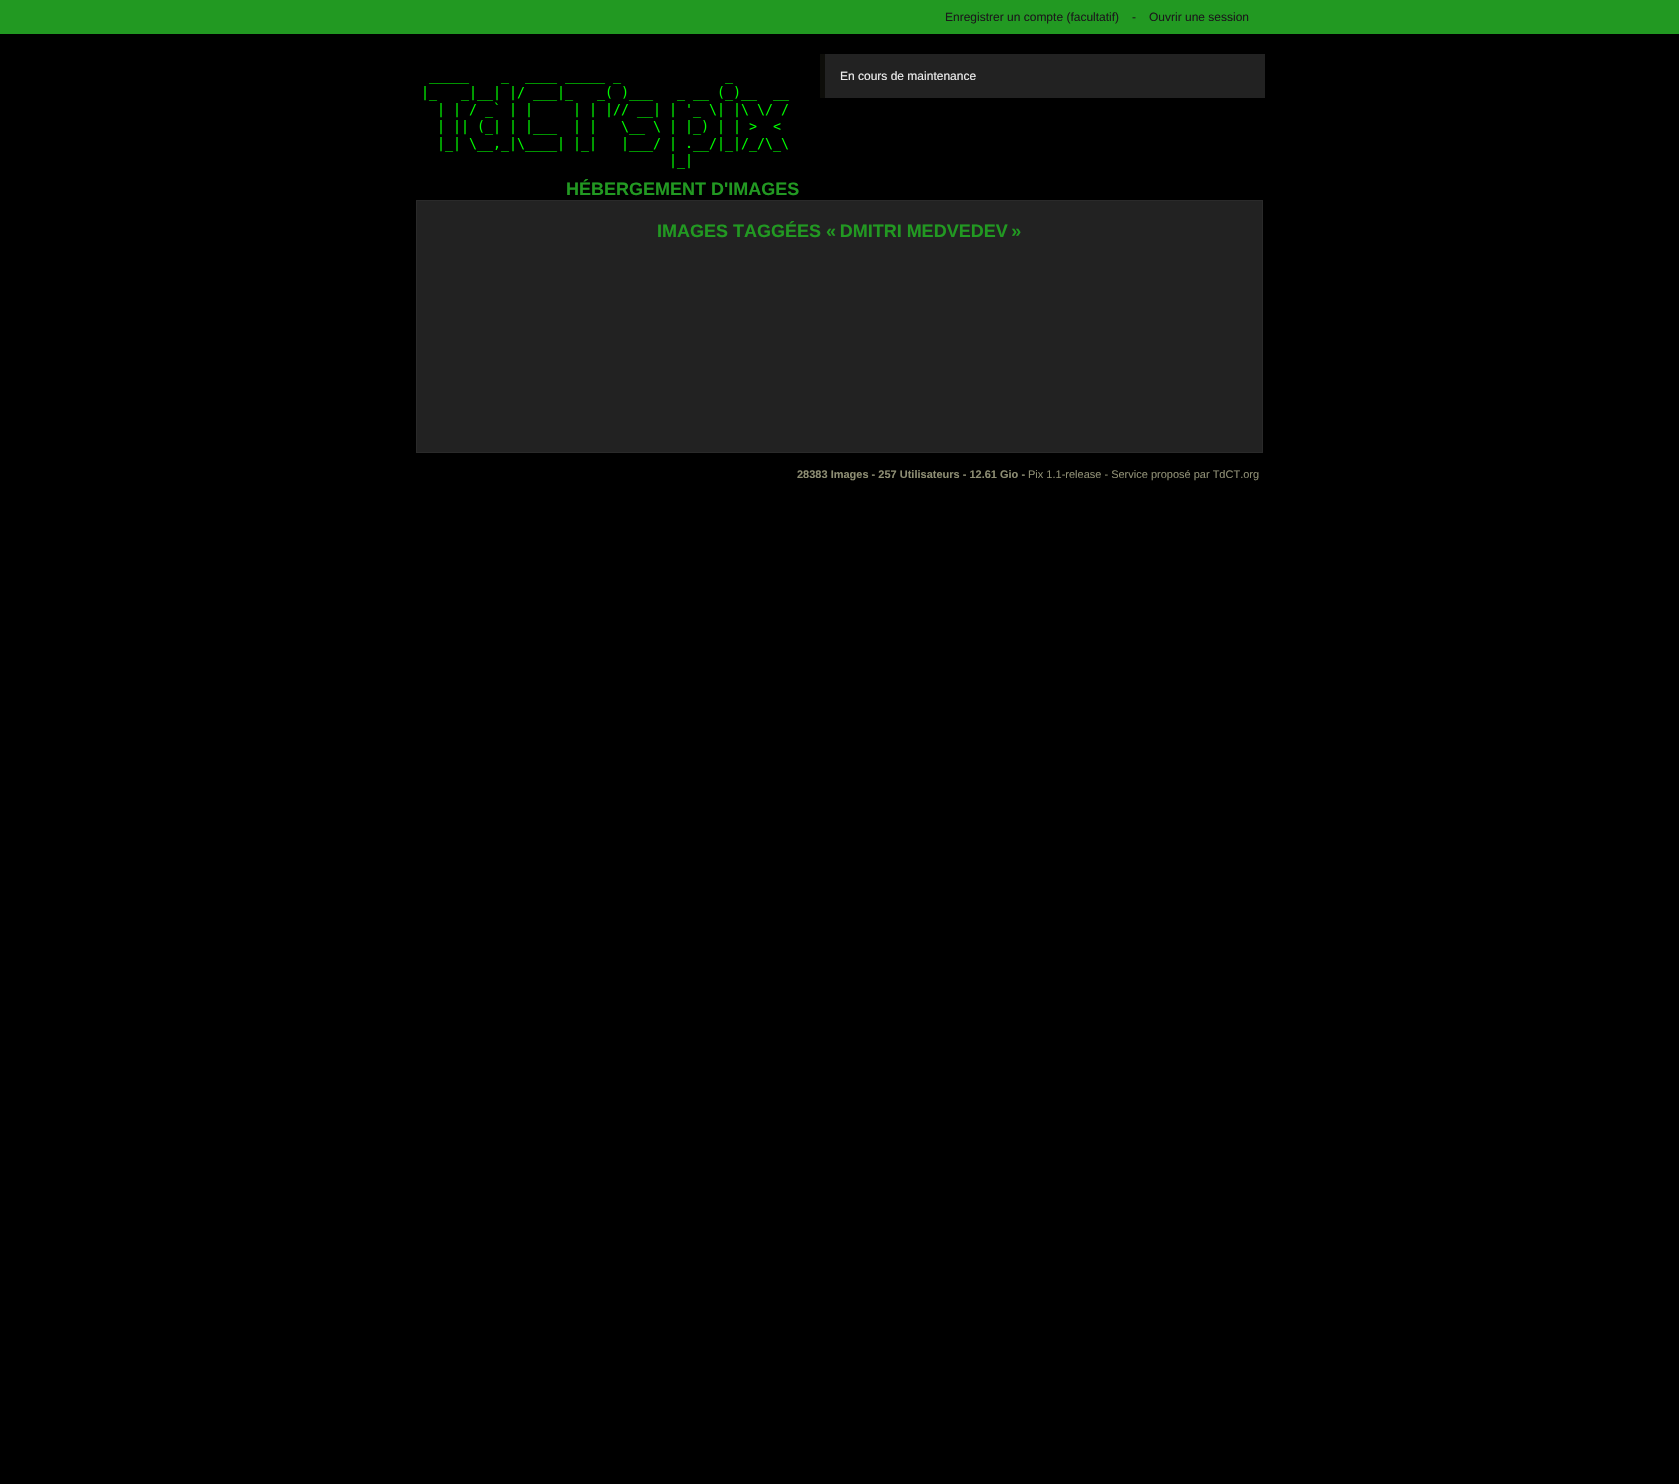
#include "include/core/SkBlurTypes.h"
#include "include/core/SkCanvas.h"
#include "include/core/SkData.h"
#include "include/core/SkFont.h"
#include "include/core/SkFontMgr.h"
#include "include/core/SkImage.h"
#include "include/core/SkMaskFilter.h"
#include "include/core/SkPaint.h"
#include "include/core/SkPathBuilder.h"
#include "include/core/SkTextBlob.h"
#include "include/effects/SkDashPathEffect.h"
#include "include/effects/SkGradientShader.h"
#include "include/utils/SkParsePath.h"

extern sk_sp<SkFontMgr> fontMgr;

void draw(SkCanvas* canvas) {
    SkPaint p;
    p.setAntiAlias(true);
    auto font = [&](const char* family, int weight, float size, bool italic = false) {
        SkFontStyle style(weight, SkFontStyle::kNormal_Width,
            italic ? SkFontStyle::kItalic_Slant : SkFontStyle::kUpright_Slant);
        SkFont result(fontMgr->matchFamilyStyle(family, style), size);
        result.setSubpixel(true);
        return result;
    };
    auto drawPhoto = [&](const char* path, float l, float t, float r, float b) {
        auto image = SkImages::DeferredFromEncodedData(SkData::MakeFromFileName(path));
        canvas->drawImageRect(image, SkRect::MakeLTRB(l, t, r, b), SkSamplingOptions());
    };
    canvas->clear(0xFF000000);
    p.setColor(0xFF229922);
    canvas->drawRect(SkRect::MakeLTRB(0, 0, 1679, 34), p);
    auto font1 = font("Liberation Sans", 400, 12);
    p.setColor(0xFF1A1A1A);
    {
        const struct { const char* s; float x, y; } items[] = {
            {"Enregistrer un compte (facultatif)", 945, 21},
            {"-", 1132, 21},
            {"Ouvrir une session", 1149, 21},
        };
        for (auto [s, x, y] : items) {
            canvas->drawString(s, x, y, font1, p);
        }
    }
    p.setColor(0xFF222222);
    canvas->drawRect(SkRect::MakeLTRB(825, 54, 1265, 98), p);
    p.setColor(0xFF0D0D09);
    canvas->drawRect(SkRect::MakeLTRB(820, 54, 825, 98), p);
    p.setColor(0xFFEEEEEE);
    canvas->drawString("En cours de maintenance", 840, 80, font1, p);
    drawPhoto("media/1.png", 424, 83, 790, 169);
    auto font2 = font("Liberation Sans", 700, 18);
    p.setColor(0xFF229922);
    canvas->drawString("HÉBERGEMENT D'IMAGES", 566, 195, font2, p);
    p.setColor(0xFF222222);
    canvas->drawRect(SkRect::MakeLTRB(416.5f, 200.5f, 1262.5f, 452.5f), p);
    p.setStyle(SkPaint::kStroke_Style);
    p.setStrokeWidth(1);
    p.setColor(0xFF2A2A2A);
    canvas->drawRect(SkRect::MakeLTRB(416.5f, 200.5f, 1262.5f, 452.5f), p);
    p.setStyle(SkPaint::kFill_Style);
    p.setColor(0xFF229922);
    canvas->drawString("IMAGES TAGGÉES « DMITRI MEDVEDEV »", 657, 237, font2, p);
    auto font3 = font("Liberation Sans", 700, 11);
    p.setColor(0xFF8D8D73);
    canvas->drawString("28383 Images - 257 Utilisateurs - 12.61 Gio -", 797, 478, font3, p);
    auto font4 = font("Liberation Sans", 400, 11);
    canvas->drawString("Pix 1.1-release - Service proposé par TdCT.org", 1028, 478, font4, p);
}
